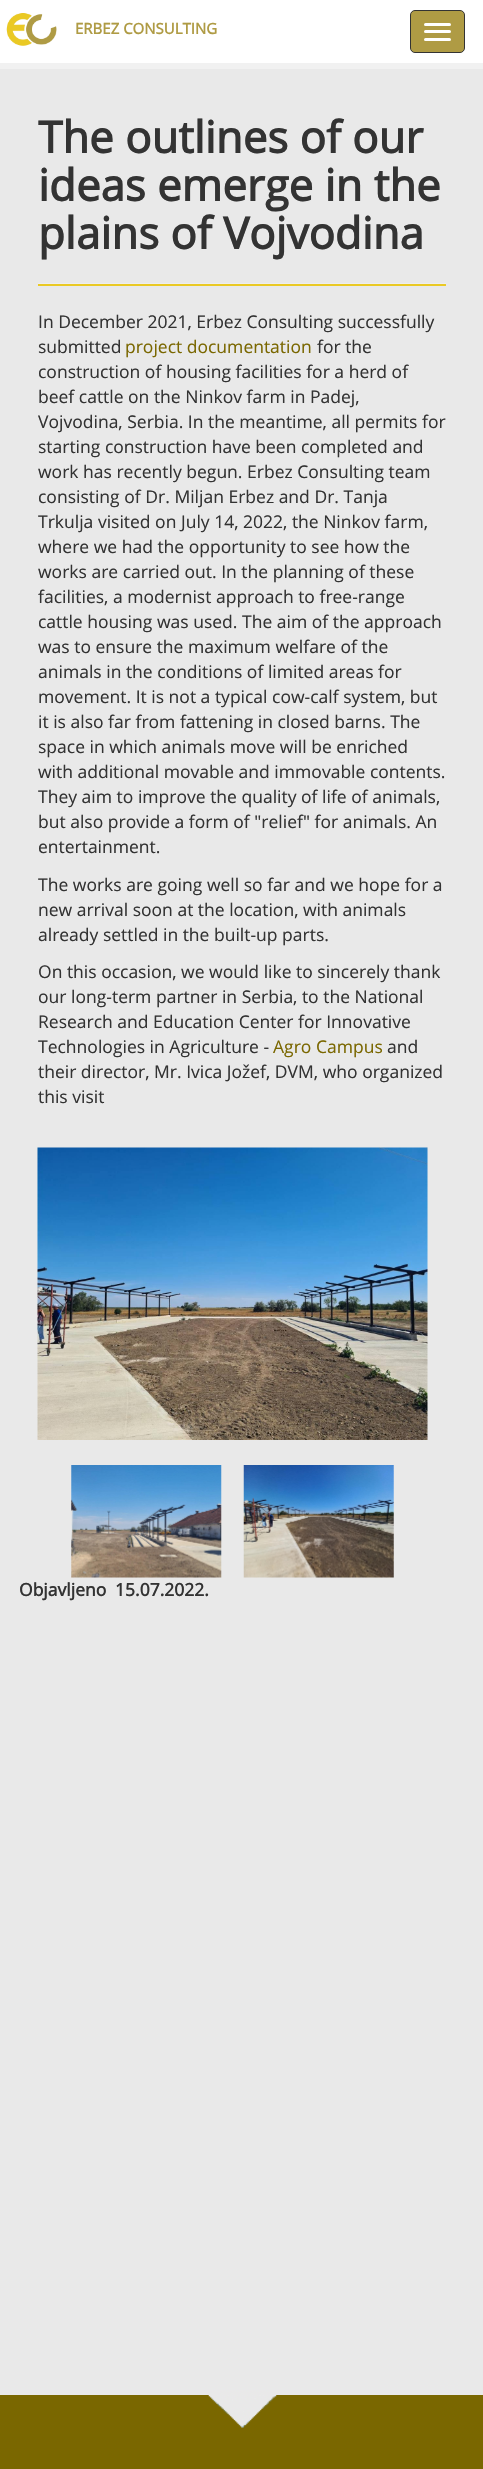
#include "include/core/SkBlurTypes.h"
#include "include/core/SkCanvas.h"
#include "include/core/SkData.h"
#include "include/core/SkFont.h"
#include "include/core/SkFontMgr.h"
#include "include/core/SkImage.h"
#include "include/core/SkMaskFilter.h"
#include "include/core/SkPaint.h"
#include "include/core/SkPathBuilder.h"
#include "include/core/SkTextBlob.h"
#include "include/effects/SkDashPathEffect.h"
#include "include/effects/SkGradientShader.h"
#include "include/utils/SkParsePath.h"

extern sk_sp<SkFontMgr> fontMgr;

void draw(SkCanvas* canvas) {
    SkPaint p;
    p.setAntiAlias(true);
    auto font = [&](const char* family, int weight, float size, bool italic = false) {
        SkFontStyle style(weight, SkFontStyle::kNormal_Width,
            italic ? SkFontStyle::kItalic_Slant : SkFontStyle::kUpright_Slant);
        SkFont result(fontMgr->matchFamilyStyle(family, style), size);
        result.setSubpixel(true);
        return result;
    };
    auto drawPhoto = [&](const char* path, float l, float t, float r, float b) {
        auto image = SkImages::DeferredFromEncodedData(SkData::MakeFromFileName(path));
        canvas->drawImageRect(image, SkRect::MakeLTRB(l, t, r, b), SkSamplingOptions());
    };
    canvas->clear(0xFFE9E9E9);
    p.setColor(0xFFFFFFFF);
    canvas->drawRect(SkRect::MakeLTRB(0, 0, 483, 63), p);
    p.setColor(0xFFF1F1F1);
    canvas->drawRect(SkRect::MakeLTRB(0, 63, 483, 69), p);
    drawPhoto("media/1.png", 6, 13, 57, 46);
    auto font1 = font("Open Sans", 700, 15);
    p.setColor(0xFFAF9B44);
    canvas->drawString("ERBEZ CONSULTING", 75, 34, font1, p);
    canvas->drawRoundRect(SkRect::MakeLTRB(410.5f, 10.5f, 464.5f, 52.5f), 4.5f, 4.5f, p);
    p.setStyle(SkPaint::kStroke_Style);
    p.setStrokeWidth(1);
    p.setColor(0xFF333333);
    canvas->drawRoundRect(SkRect::MakeLTRB(410.5f, 10.5f, 464.5f, 52.5f), 4.5f, 4.5f, p);
    p.setStyle(SkPaint::kFill_Style);
    p.setColor(0xFFFFFFFF);
    canvas->drawRoundRect(SkRect::MakeLTRB(424, 23, 451, 26), 1.5f, 1.5f, p);
    canvas->drawRoundRect(SkRect::MakeLTRB(424, 30, 451, 33), 1.5f, 1.5f, p);
    canvas->drawRoundRect(SkRect::MakeLTRB(424, 38, 451, 41), 1.5f, 1.5f, p);
    auto font2 = font("Open Sans", 700, 43.75f);
    p.setColor(0xFF333333);
    {
        const struct { const char* s; float x, y; } items[] = {
            {"The outlines of our", 38, 153},
            {"ideas emerge in the", 38, 201},
            {"plains of Vojvodina", 38, 249},
        };
        for (auto [s, x, y] : items) {
            canvas->drawString(s, x, y, font2, p);
        }
    }
    p.setColor(0xFFEAC924);
    canvas->drawRect(SkRect::MakeLTRB(38, 284, 446, 286), p);
    p.setColor(0xFFEEEEEE);
    canvas->drawRect(SkRect::MakeLTRB(38, 283, 446, 284), p);
    auto font3 = font("Open Sans", 400, 17.5f);
    p.setColor(0xFF333333);
    canvas->drawString("In December 2021, Erbez Consulting successfully", 38, 328, font3, p);
    canvas->drawString("submitted", 38, 353, font3, p);
    p.setColor(0xFF7A6700);
    canvas->drawString("project documentation", 125, 353, font3, p);
    p.setColor(0xFF333333);
    {
        const struct { const char* s; float x, y; } items[] = {
            {"for the", 317, 353},
            {"construction of housing facilities for a herd of", 38, 378},
            {"beef cattle on the Ninkov farm in Padej,", 38, 403},
            {"Vojvodina, Serbia. In the meantime, all permits for", 38, 428},
            {"starting construction have been completed and", 38, 453},
            {"work has recently begun. Erbez Consulting team", 38, 478},
            {"consisting of Dr. Miljan Erbez and Dr. Tanja", 38, 503},
            {"Trkulja visited on July 14, 2022, the Ninkov farm,", 38, 528},
            {"where we had the opportunity to see how the", 38, 553},
            {"works are carried out. In the planning of these", 38, 578},
            {"facilities, a modernist approach to free-range", 38, 603},
            {"cattle housing was used. The aim of the approach", 38, 628},
            {"was to ensure the maximum welfare of the", 38, 653},
            {"animals in the conditions of limited areas for", 38, 678},
            {"movement. It is not a typical cow-calf system, but", 38, 703},
            {"it is also far from fattening in closed barns. The", 38, 728},
            {"space in which animals move will be enriched", 38, 753},
            {"with additional movable and immovable contents.", 38, 778},
            {"They aim to improve the quality of life of animals,", 38, 803},
            {"but also provide a form of \"relief\" for animals. An", 38, 828},
            {"entertainment.", 38, 853},
            {"The works are going well so far and we hope for a", 38, 891},
            {"new arrival soon at the location, with animals", 38, 916},
            {"already settled in the built-up parts.", 38, 941},
            {"On this occasion, we would like to sincerely thank", 38, 978},
            {"our long-term partner in Serbia, to the National", 38, 1003},
            {"Research and Education Center for Innovative", 38, 1028},
            {"Technologies in Agriculture -", 38, 1053},
        };
        for (auto [s, x, y] : items) {
            canvas->drawString(s, x, y, font3, p);
        }
    }
    p.setColor(0xFF7A6700);
    canvas->drawString("Agro Campus", 273, 1053, font3, p);
    p.setColor(0xFF333333);
    {
        const struct { const char* s; float x, y; } items[] = {
            {"and", 387, 1053},
            {"their director, Mr. Ivica Jožef, DVM, who organized", 38, 1078},
            {"this visit", 38, 1103},
        };
        for (auto [s, x, y] : items) {
            canvas->drawString(s, x, y, font3, p);
        }
    }
    drawPhoto("media/2.png", 37, 1147, 428, 1440);
    drawPhoto("media/3.png", 71, 1465, 222, 1578);
    drawPhoto("media/4.png", 243, 1465, 394, 1578);
    auto font4 = font("Open Sans", 700, 17.5f);
    canvas->drawString("Objavljeno", 19, 1596, font4, p);
    canvas->drawString("15.07.2022.", 115, 1596, font4, p);
    p.setColor(0xFF7A6700);
    canvas->drawRect(SkRect::MakeLTRB(0, 2395, 483, 2469), p);
    drawPhoto("media/5.png", 208, 2395, 277, 2428);
}
